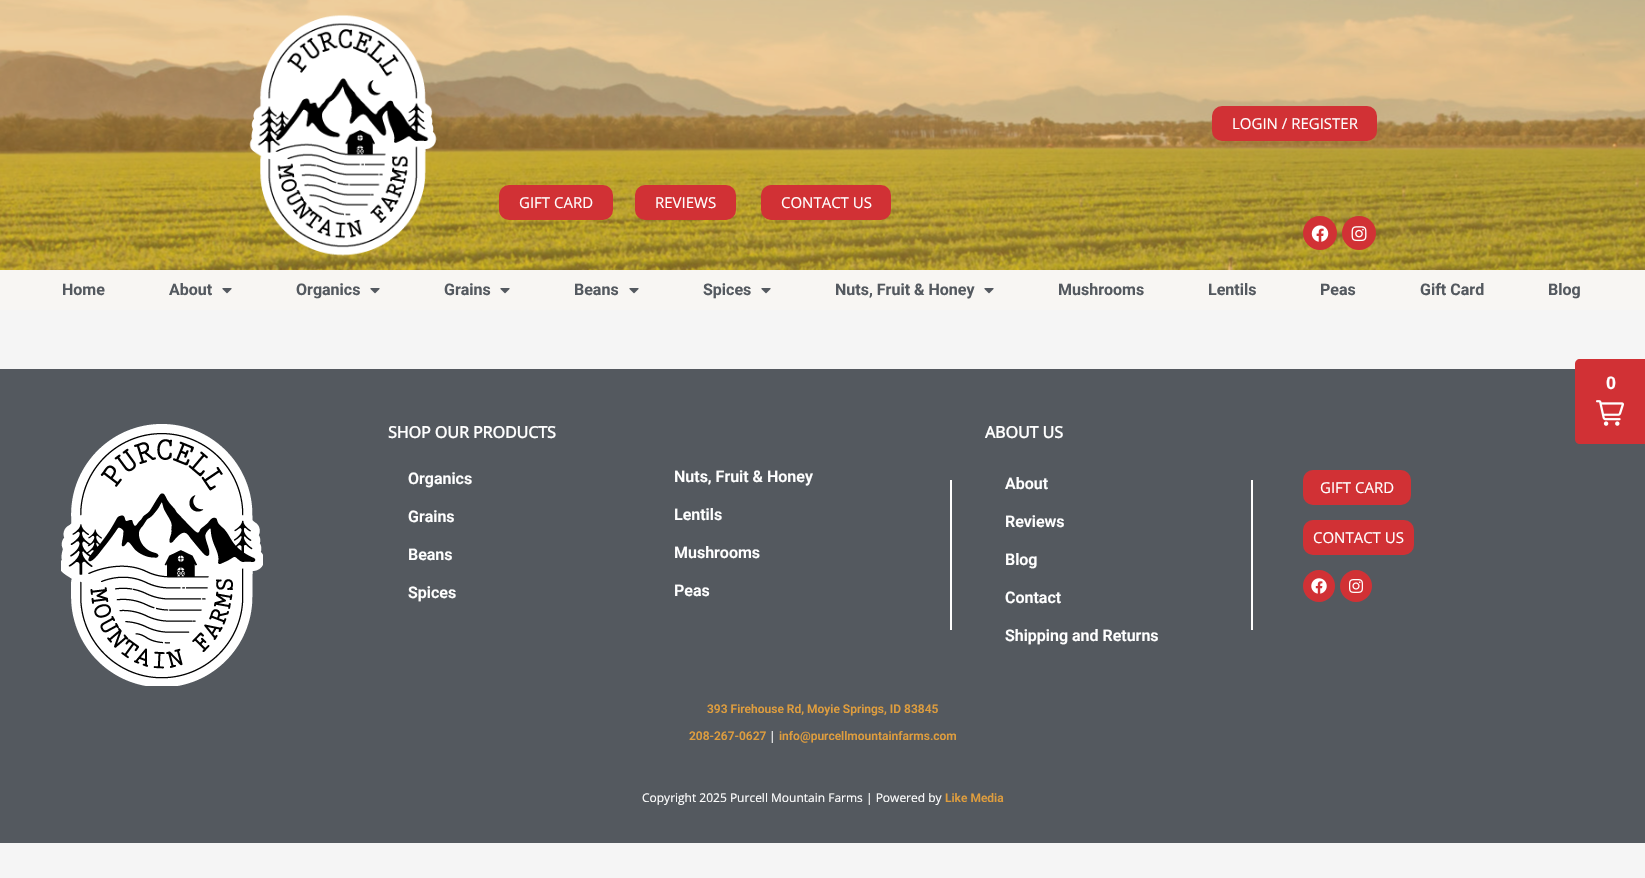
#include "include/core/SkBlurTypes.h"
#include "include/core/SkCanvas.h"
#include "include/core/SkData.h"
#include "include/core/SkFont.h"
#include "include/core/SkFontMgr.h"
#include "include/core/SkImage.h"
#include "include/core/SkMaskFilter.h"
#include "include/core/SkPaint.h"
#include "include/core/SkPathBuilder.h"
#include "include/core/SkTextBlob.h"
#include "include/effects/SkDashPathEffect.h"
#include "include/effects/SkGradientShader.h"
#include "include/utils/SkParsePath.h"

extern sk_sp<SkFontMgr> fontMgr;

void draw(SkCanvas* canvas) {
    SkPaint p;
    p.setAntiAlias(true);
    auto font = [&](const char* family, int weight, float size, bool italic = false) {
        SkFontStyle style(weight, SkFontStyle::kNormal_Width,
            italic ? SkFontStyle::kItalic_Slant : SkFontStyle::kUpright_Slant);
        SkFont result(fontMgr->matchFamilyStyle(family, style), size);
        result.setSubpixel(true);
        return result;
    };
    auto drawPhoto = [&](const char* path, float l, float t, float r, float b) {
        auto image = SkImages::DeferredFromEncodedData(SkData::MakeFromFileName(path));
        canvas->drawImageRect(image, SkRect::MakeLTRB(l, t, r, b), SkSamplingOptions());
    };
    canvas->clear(0xFFF5F5F5);
    drawPhoto("media/1.png", 0, 0, 1645, 270);
    drawPhoto("media/2.png", 249, 15, 437, 256);
    p.setColor(0xFFD13135);
    canvas->drawRoundRect(SkRect::MakeLTRB(1212, 106, 1377, 141), 10, 10, p);
    auto font1 = font("Open Sans", 400, 15);
    p.setColor(0xFFFFFFFF);
    canvas->drawString("LOGIN / REGISTER", 1232, 129, font1, p);
    p.setColor(0xFFD13135);
    canvas->drawCircle(1320, 233, 17, p);
    drawPhoto("media/3.png", 1311, 225, 1329, 242);
    canvas->drawCircle(1359, 233, 17, p);
    drawPhoto("media/4.png", 1351, 226, 1367, 242);
    canvas->drawRoundRect(SkRect::MakeLTRB(499, 185, 613, 220), 10, 10, p);
    p.setColor(0xFFFFFFFF);
    canvas->drawString("GIFT CARD", 519, 208, font1, p);
    p.setColor(0xFFD13135);
    canvas->drawRoundRect(SkRect::MakeLTRB(635, 185, 736, 220), 10, 10, p);
    p.setColor(0xFFFFFFFF);
    canvas->drawString("REVIEWS", 655, 208, font1, p);
    p.setColor(0xFFD13135);
    canvas->drawRoundRect(SkRect::MakeLTRB(761, 185, 891, 220), 10, 10, p);
    p.setColor(0xFFFFFFFF);
    canvas->drawString("CONTACT US", 781, 208, font1, p);
    p.setColor(0xFFF8F6F3);
    canvas->drawRect(SkRect::MakeLTRB(0, 270, 1645, 310), p);
    auto font2 = font("Roboto", 700, 16);
    p.setColor(0xFF54595F);
    canvas->drawString("Home", 62, 295, font2, p);
    canvas->drawString("About", 169, 295, font2, p);
    drawPhoto("media/5.png", 222, 288, 232, 294);
    canvas->drawString("Organics", 296, 295, font2, p);
    drawPhoto("media/5.png", 370, 288, 380, 294);
    canvas->drawString("Grains", 444, 295, font2, p);
    drawPhoto("media/5.png", 500, 288, 510, 294);
    canvas->drawString("Beans", 574, 295, font2, p);
    drawPhoto("media/5.png", 629, 288, 639, 294);
    canvas->drawString("Spices", 703, 295, font2, p);
    drawPhoto("media/5.png", 761, 288, 771, 294);
    canvas->drawString("Nuts, Fruit & Honey", 835, 295, font2, p);
    drawPhoto("media/5.png", 984, 288, 994, 294);
    {
        const struct { const char* s; float x, y; } items[] = {
            {"Mushrooms", 1058, 295},
            {"Lentils", 1208, 295},
            {"Peas", 1320, 295},
            {"Gift Card", 1420, 295},
            {"Blog", 1548, 295},
        };
        for (auto [s, x, y] : items) {
            canvas->drawString(s, x, y, font2, p);
        }
    }
    canvas->drawRect(SkRect::MakeLTRB(0, 369, 1575, 424), p);
    canvas->drawRect(SkRect::MakeLTRB(0, 424, 1645, 843), p);
    drawPhoto("media/6.png", 61, 424, 263, 686);
    auto font3 = font("Open Sans", 700, 16);
    p.setColor(0xFFFFFFFF);
    canvas->drawString("SHOP OUR PRODUCTS", 388, 438, font3, p);
    auto font4 = font("Roboto", 600, 16);
    {
        const struct { const char* s; float x, y; } items[] = {
            {"Organics", 408, 484},
            {"Grains", 408, 522},
            {"Beans", 408, 560},
            {"Spices", 408, 598},
            {"Nuts, Fruit & Honey", 674, 482},
            {"Lentils", 674, 520},
            {"Mushrooms", 674, 558},
            {"Peas", 674, 596},
        };
        for (auto [s, x, y] : items) {
            canvas->drawString(s, x, y, font4, p);
        }
    }
    canvas->drawRect(SkRect::MakeLTRB(950, 480, 952, 630), p);
    canvas->drawString("ABOUT US", 985, 438, font3, p);
    {
        const struct { const char* s; float x, y; } items[] = {
            {"About", 1005, 489},
            {"Reviews", 1005, 527},
            {"Blog", 1005, 565},
            {"Contact", 1005, 603},
            {"Shipping and Returns", 1005, 641},
        };
        for (auto [s, x, y] : items) {
            canvas->drawString(s, x, y, font4, p);
        }
    }
    canvas->drawRect(SkRect::MakeLTRB(1251, 480, 1253, 630), p);
    p.setColor(0xFFD13135);
    canvas->drawRoundRect(SkRect::MakeLTRB(1303, 470, 1411, 505), 10, 10, p);
    p.setColor(0xFFFFFFFF);
    canvas->drawString("GIFT CARD", 1320, 493, font1, p);
    p.setColor(0xFFD13135);
    canvas->drawRoundRect(SkRect::MakeLTRB(1303, 520, 1414, 555), 10, 10, p);
    p.setColor(0xFFFFFFFF);
    canvas->drawString("CONTACT US", 1313, 543, font1, p);
    p.setColor(0xFFD13135);
    canvas->drawCircle(1319, 586, 16, p);
    drawPhoto("media/7.png", 1311, 578, 1327, 594);
    canvas->drawCircle(1356, 586, 16, p);
    drawPhoto("media/8.png", 1349, 579, 1363, 593);
    auto font5 = font("Roboto", 600, 12);
    p.setColor(0xFFDE9D3E);
    canvas->drawString("393 Firehouse Rd, Moyie Springs, ID 83845", 707, 713, font5, p);
    canvas->drawString("208-267-0627", 689, 740, font5, p);
    auto font6 = font("Open Sans", 400, 12);
    p.setColor(0xFFFFFFFF);
    canvas->drawString("|", 769, 740, font6, p);
    p.setColor(0xFFDE9D3E);
    canvas->drawString("info@purcellmountainfarms.com", 779, 740, font5, p);
    p.setColor(0xFFFFFFFF);
    canvas->drawString("Copyright 2025 Purcell Mountain Farms | Powered by", 642, 802, font6, p);
    p.setColor(0xFFDE9D3E);
    canvas->drawString("Like Media", 945, 802, font5, p);
    p.setColor(0xFFD13135);
    canvas->drawPath(SkPathBuilder().moveTo(1580, 359).lineTo(1645, 359).lineTo(1645, 444).lineTo(1580, 444).cubicTo(1577, 444, 1575, 442, 1575, 439).lineTo(1575, 364).cubicTo(1575, 361, 1577, 359, 1580, 359).close().detach(), p);
    auto font7 = font("Liberation Sans", 700, 18);
    p.setColor(0xFFFFFFFF);
    canvas->drawString("0", 1606, 389, font7, p);
    drawPhoto("media/9.png", 1596, 400, 1624, 426);
}
